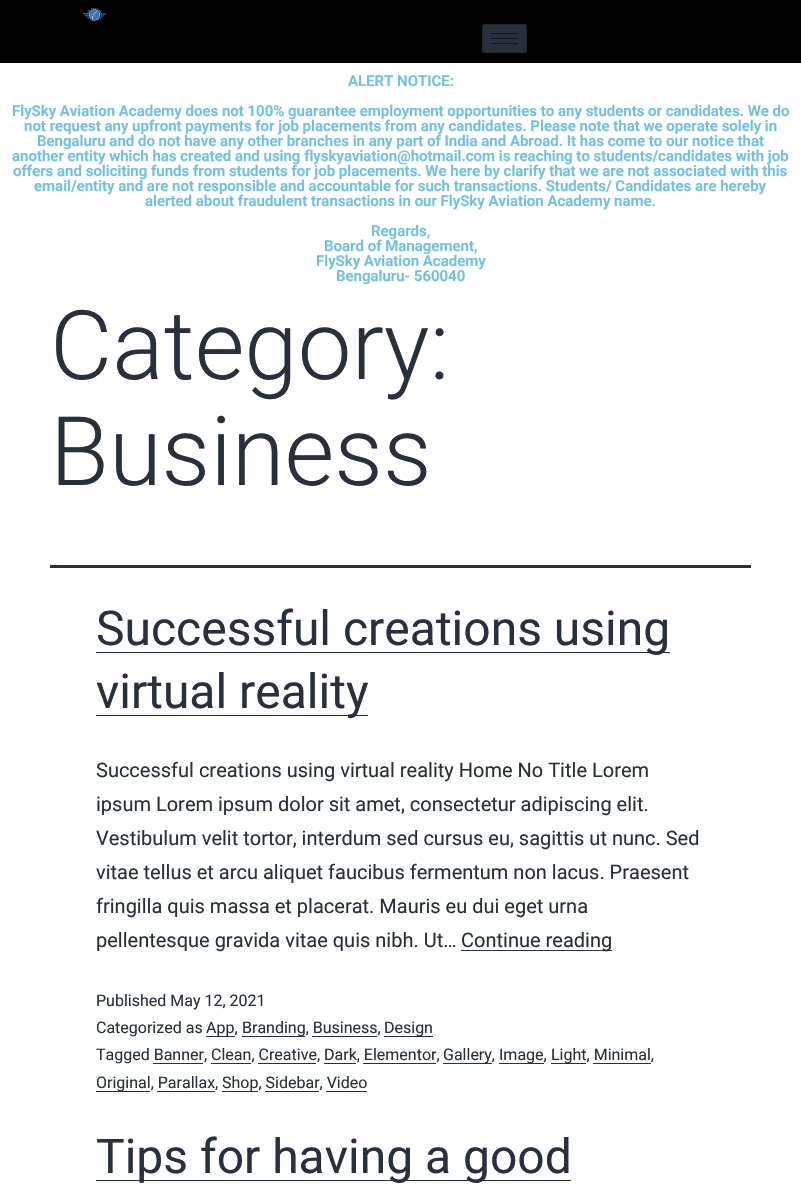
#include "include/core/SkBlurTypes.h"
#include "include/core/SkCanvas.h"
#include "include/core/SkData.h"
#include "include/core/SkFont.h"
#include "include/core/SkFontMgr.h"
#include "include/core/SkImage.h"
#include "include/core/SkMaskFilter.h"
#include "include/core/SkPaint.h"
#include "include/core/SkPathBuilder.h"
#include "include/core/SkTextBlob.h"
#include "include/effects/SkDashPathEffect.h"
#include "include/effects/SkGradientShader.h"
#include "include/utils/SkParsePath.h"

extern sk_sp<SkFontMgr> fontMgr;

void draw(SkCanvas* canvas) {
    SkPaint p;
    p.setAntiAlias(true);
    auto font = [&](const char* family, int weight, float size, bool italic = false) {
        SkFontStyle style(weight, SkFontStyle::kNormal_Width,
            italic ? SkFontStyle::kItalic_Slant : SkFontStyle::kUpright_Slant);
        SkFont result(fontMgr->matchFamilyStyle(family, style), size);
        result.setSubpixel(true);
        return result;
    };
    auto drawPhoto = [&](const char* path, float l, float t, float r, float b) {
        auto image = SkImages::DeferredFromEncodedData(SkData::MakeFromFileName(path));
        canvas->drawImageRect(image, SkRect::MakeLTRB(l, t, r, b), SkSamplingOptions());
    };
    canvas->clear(0xFFFFFFFF);
    p.setColor(0xFF000000);
    canvas->drawRect(SkRect::MakeLTRB(0, 0, 801, 63), p);
    drawPhoto("media/1.png", 83, 7, 106, 22);
    p.setColor(0xFF28303D);
    canvas->drawRoundRect(SkRect::MakeLTRB(482, 24, 527, 53), 3, 3, p);
    p.setStyle(SkPaint::kStroke_Style);
    p.setStrokeWidth(1);
    p.setColor(0x33000000);
    canvas->drawRoundRect(SkRect::MakeLTRB(482.5f, 24.5f, 526.5f, 52.5f), 2.5f, 2.5f, p);
    p.setStyle(SkPaint::kFill_Style);
    {
        const struct { float l, t, r, b; SkColor color; } items[] = {
            {491, 33, 518, 34, 0xFF14181F},
            {491, 38, 518, 39, 0xFF14181F},
            {491, 43, 518, 44, 0xFF14181F},
        };
        for (auto [l, t, r, b, color] : items) {
            p.setColor(color);
            canvas->drawRect(SkRect::MakeLTRB(l, t, r, b), p);
        }
    }
    auto font1 = font("Roboto", 600, 15);
    p.setColor(0xFF6EC1E4);
    {
        const struct { const char* s; float x, y; } items[] = {
            {"ALERT NOTICE:", 348, 86},
            {"FlySky Aviation Academy does not 100% guarantee employment opportunities to any students or candidates. We do", 12, 116},
            {"not request any upfront payments for job placements from any candidates. Please note that we operate solely in", 24, 131},
            {"Bengaluru and do not have any other branches in any part of India and Abroad. It has come to our notice that", 37, 146},
            {"another entity which has created and using flyskyaviation@hotmail.com is reaching to students/candidates with job", 12, 161},
            {"offers and soliciting funds from students for job placements. We here by clarify that we are not associated with this", 13, 176},
            {"email/entity and are not responsible and accountable for such transactions. Students/ Candidates are hereby", 34, 191},
            {"alerted about fraudulent transactions in our FlySky Aviation Academy name.", 145, 206},
            {"Regards,", 371, 236},
            {"Board of Management,", 324, 251},
            {"FlySky Aviation Academy", 316, 266},
            {"Bengaluru- 560040", 336, 281},
        };
        for (auto [s, x, y] : items) {
            canvas->drawString(s, x, y, font1, p);
        }
    }
    p.setColor(0xFF28303D);
    canvas->drawRect(SkRect::MakeLTRB(50, 565, 751, 568), p);
    auto font2 = font("Roboto", 300, 96);
    canvas->drawString("Category:", 50, 379, font2, p);
    canvas->drawString("Business", 50, 485, font2, p);
    canvas->drawRect(SkRect::MakeLTRB(96, 652, 670, 653), p);
    auto font3 = font("Roboto", 400, 48);
    canvas->drawString("Successful creations using", 96, 645, font3, p);
    canvas->drawRect(SkRect::MakeLTRB(96, 715, 368, 716), p);
    canvas->drawString("virtual reality", 96, 708, font3, p);
    auto font4 = font("Roboto", 400, 20);
    {
        const struct { const char* s; float x, y; } items[] = {
            {"Successful creations using virtual reality Home No Title Lorem", 96, 777},
            {"ipsum Lorem ipsum dolor sit amet, consectetur adipiscing elit.", 96, 811},
            {"Vestibulum velit tortor, interdum sed cursus eu, sagittis ut nunc. Sed", 96, 845},
            {"vitae tellus et arcu aliquet faucibus fermentum non lacus. Praesent", 96, 879},
            {"fringilla quis massa et placerat. Mauris eu dui eget urna", 96, 913},
            {"pellentesque gravida vitae quis nibh. Ut…", 96, 947},
        };
        for (auto [s, x, y] : items) {
            canvas->drawString(s, x, y, font4, p);
        }
    }
    canvas->drawRect(SkRect::MakeLTRB(461, 950, 612, 951), p);
    canvas->drawString("Continue reading", 461, 947, font4, p);
    auto font5 = font("Roboto", 400, 16);
    canvas->drawString("Published May 12, 2021", 96, 1006, font5, p);
    canvas->drawString("Categorized as", 96, 1033, font5, p);
    canvas->drawRect(SkRect::MakeLTRB(206, 1036, 235, 1037), p);
    canvas->drawString("App,", 206, 1033, font5, p);
    canvas->drawRect(SkRect::MakeLTRB(242, 1036, 305, 1037), p);
    canvas->drawString("Branding, Business,", 242, 1033, font5, p);
    canvas->drawRect(SkRect::MakeLTRB(384, 1036, 433, 1037), p);
    canvas->drawString("Design", 384, 1033, font5, p);
    canvas->drawRect(SkRect::MakeLTRB(312, 1036, 377, 1037), p);
    canvas->drawString("Tagged Banner, Clean, Creative, Dark, Elementor,", 96, 1060, font5, p);
    canvas->drawRect(SkRect::MakeLTRB(443, 1063, 492, 1064), p);
    canvas->drawString("Gallery,", 443, 1060, font5, p);
    canvas->drawRect(SkRect::MakeLTRB(499, 1063, 544, 1064), p);
    canvas->drawString("Image,", 499, 1060, font5, p);
    canvas->drawRect(SkRect::MakeLTRB(551, 1063, 586, 1064), p);
    canvas->drawString("Light, Minimal,", 551, 1060, font5, p);
    {
        const struct { float l, t, r, b; SkColor color; } items[] = {
            {153, 1063, 203, 1064, 0xFF28303D},
            {211, 1063, 251, 1064, 0xFF28303D},
            {258, 1063, 316, 1064, 0xFF28303D},
            {324, 1063, 356, 1064, 0xFF28303D},
            {363, 1063, 436, 1064, 0xFF28303D},
            {593, 1063, 651, 1064, 0xFF28303D},
            {96, 1091, 150, 1092, 0xFF28303D},
        };
        for (auto [l, t, r, b, color] : items) {
            p.setColor(color);
            canvas->drawRect(SkRect::MakeLTRB(l, t, r, b), p);
        }
    }
    canvas->drawString("Original, Parallax,", 96, 1088, font5, p);
    canvas->drawRect(SkRect::MakeLTRB(222, 1091, 258, 1092), p);
    canvas->drawString("Shop, Sidebar, Video", 222, 1088, font5, p);
    {
        const struct { float l, t, r, b; SkColor color; } items[] = {
            {157, 1091, 215, 1092, 0xFF28303D},
            {265, 1091, 319, 1092, 0xFF28303D},
            {326, 1091, 367, 1092, 0xFF28303D},
            {96, 1180, 571, 1181, 0xFF28303D},
        };
        for (auto [l, t, r, b, color] : items) {
            p.setColor(color);
            canvas->drawRect(SkRect::MakeLTRB(l, t, r, b), p);
        }
    }
    canvas->drawString("Tips for having a good", 96, 1173, font3, p);
}
